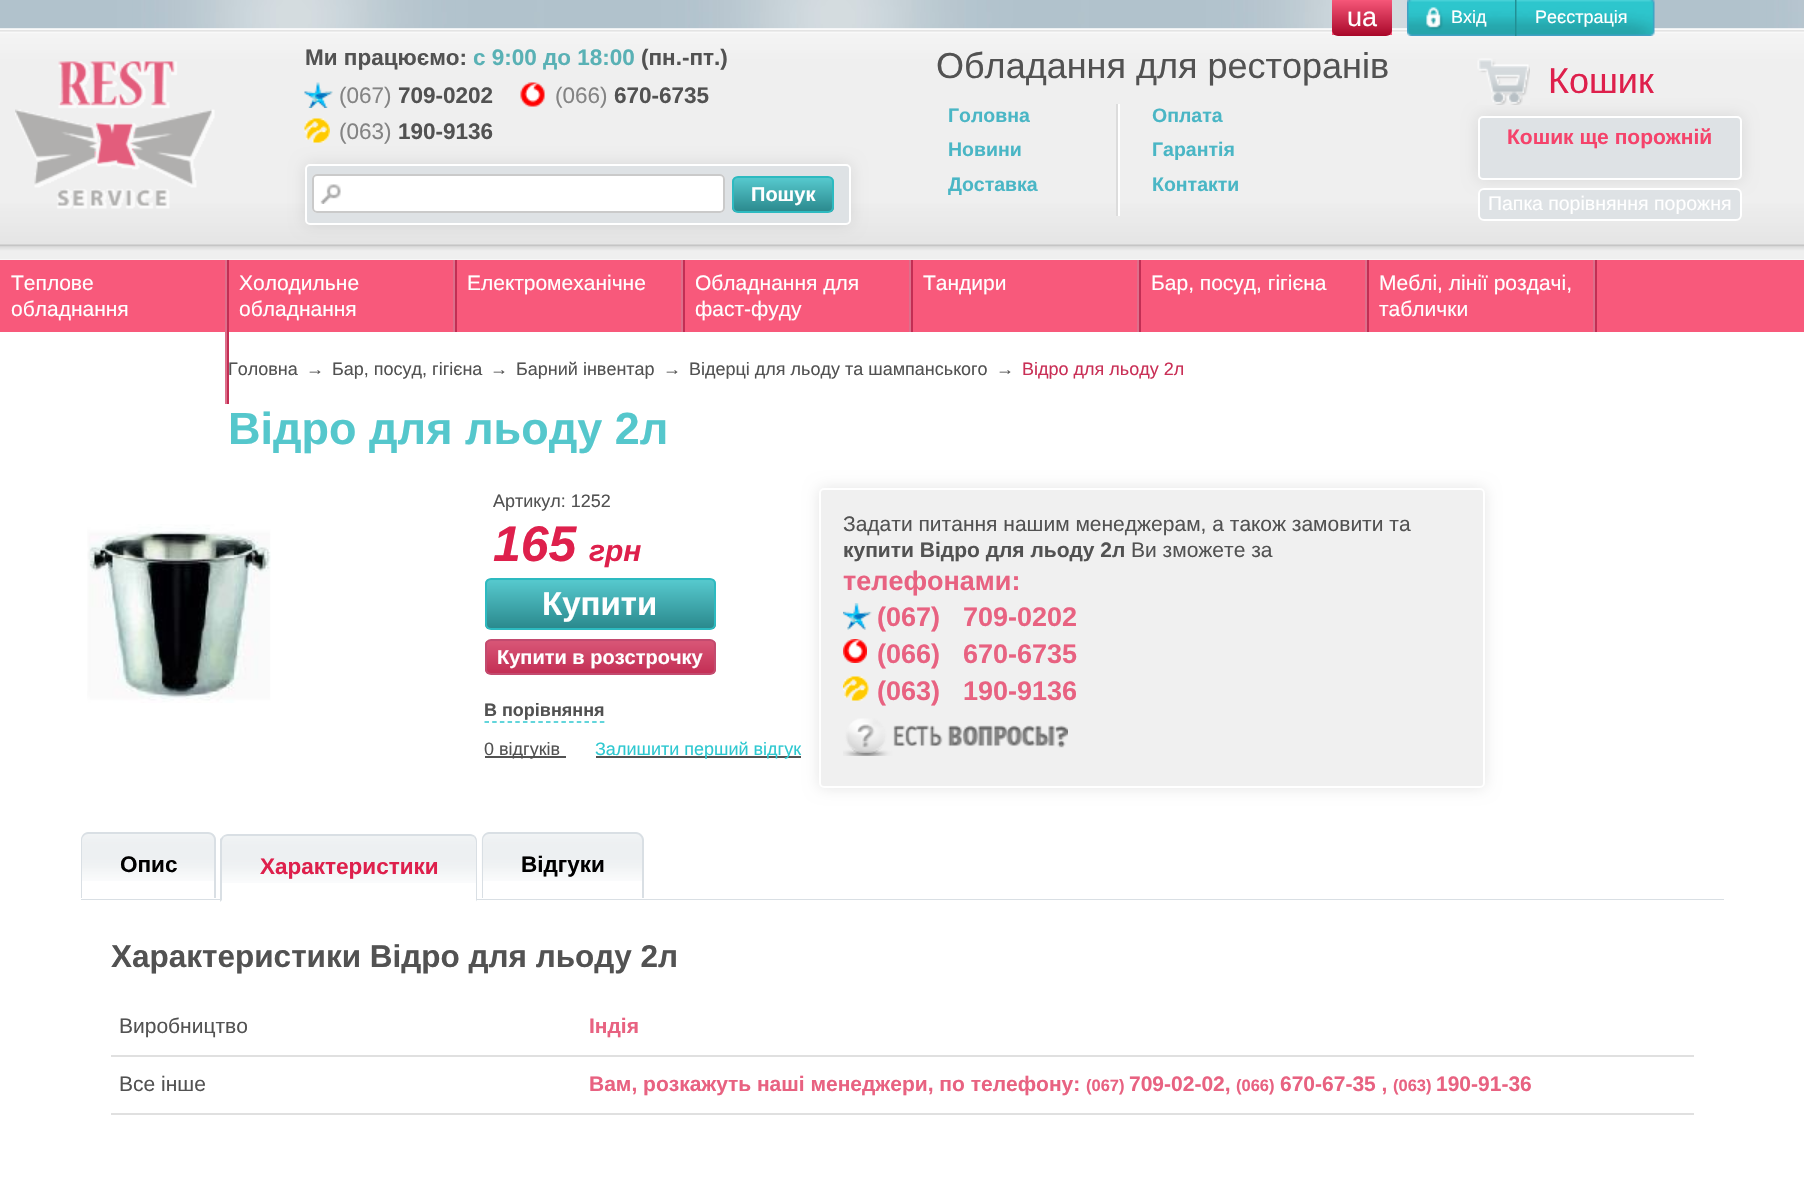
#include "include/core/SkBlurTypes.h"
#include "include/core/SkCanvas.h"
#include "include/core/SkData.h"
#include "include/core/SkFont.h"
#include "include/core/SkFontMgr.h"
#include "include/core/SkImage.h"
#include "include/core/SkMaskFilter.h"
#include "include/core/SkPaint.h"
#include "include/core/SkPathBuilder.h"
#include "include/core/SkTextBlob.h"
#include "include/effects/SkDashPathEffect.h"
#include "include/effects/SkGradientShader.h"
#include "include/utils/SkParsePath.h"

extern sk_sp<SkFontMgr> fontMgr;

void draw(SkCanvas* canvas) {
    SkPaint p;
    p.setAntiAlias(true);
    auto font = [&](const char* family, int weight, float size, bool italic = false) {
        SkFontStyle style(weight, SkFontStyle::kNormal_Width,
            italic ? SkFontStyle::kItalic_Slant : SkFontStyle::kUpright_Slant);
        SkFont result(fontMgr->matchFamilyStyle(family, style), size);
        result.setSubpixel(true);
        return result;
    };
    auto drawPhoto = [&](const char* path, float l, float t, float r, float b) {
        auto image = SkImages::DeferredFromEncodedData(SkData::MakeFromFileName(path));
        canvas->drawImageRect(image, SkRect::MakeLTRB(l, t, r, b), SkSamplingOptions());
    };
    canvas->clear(0xFFFFFFFF);
    drawPhoto("media/1.png", 0, 0, 1804, 29);
    drawPhoto("media/4.png", 0, 28, 1804, 260);
    p.setColor(0xFFF8597B);
    canvas->drawRect(SkRect::MakeLTRB(1332, 0, 1392, 35), p);
    {
        const SkColor colors[] = {0xFFF8597B, 0xFFA80729};
        const float stops[] = {0.05f, 1};
        const SkPoint ends[] = {{1332, -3}, {1332, 36}};
        p.setShader(SkGradientShader::MakeLinear(ends, colors, stops, 2, SkTileMode::kClamp));
        p.setAlpha(255);
    }
    canvas->drawRoundRect(SkRect::MakeLTRB(1332, -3, 1392, 36), 6, 6, p);
    auto font1 = font("Liberation Sans", 400, 27);
    p.setShader(nullptr);
    p.setColor(0xFFFFFFFF);
    canvas->drawString("ua", 1347, 26, font1, p);
    drawPhoto("media/2.png", 1407, 0, 1515, 36);
    auto font2 = font("Liberation Sans", 400, 18);
    canvas->drawString("Вхід", 1451, 23, font2, p);
    p.setColor(0xFF218F94);
    canvas->drawRect(SkRect::MakeLTRB(1515, 0, 1517, 36), p);
    drawPhoto("media/3.png", 1516, 0, 1655, 36);
    p.setColor(0xFFFFFFFF);
    canvas->drawString("Реєстрація", 1535, 23, font2, p);
    drawPhoto("media/5.png", 15, 61, 215, 209);
    auto font3 = font("Liberation Sans", 700, 22.5f);
    p.setColor(0xFF525252);
    canvas->drawString("Ми працюємо:", 305, 65, font3, p);
    p.setColor(0xFF59B1B5);
    canvas->drawString("с 9:00 до 18:00", 473, 65, font3, p);
    p.setColor(0xFF525252);
    canvas->drawString("(пн.-пт.)", 641, 65, font3, p);
    drawPhoto("media/6.png", 304, 82, 333, 108);
    auto font4 = font("Liberation Sans", 400, 22.5f);
    p.setColor(0xFF848484);
    canvas->drawString("(067)", 339, 103, font4, p);
    p.setColor(0xFF525252);
    canvas->drawString("709-0202", 398, 103, font3, p);
    drawPhoto("media/7.png", 520, 82, 545, 107);
    p.setColor(0xFF848484);
    canvas->drawString("(066)", 555, 103, font4, p);
    p.setColor(0xFF525252);
    canvas->drawString("670-6735", 614, 103, font3, p);
    drawPhoto("media/8.png", 304, 118, 330, 143);
    p.setColor(0xFF848484);
    canvas->drawString("(063)", 339, 139, font4, p);
    p.setColor(0xFF525252);
    canvas->drawString("190-9136", 398, 139, font3, p);
    p.setColor(0x1A000000);
    p.setMaskFilter(SkMaskFilter::MakeBlur(kNormal_SkBlurStyle, 7.5f));
    canvas->drawRoundRect(SkRect::MakeLTRB(305, 164, 851, 225), 5, 5, p);
    p.setMaskFilter(nullptr);
    p.setColor(0xFFDEE2E5);
    canvas->drawRoundRect(SkRect::MakeLTRB(306, 165, 850, 224), 4, 4, p);
    p.setStyle(SkPaint::kStroke_Style);
    p.setStrokeWidth(2);
    p.setColor(0xFFFFFFFF);
    canvas->drawRoundRect(SkRect::MakeLTRB(306, 165, 850, 224), 4, 4, p);
    p.setStyle(SkPaint::kFill_Style);
    canvas->drawRoundRect(SkRect::MakeLTRB(312, 174, 725, 213), 5, 5, p);
    drawPhoto("media/9.png", 320, 184, 341, 204);
    p.setStyle(SkPaint::kStroke_Style);
    p.setColor(0xFFCACACA);
    canvas->drawRoundRect(SkRect::MakeLTRB(313, 175, 724, 212), 4, 4, p);
    canvas->save();
    canvas->clipPath(SkPathBuilder().moveTo(738, 176).lineTo(828, 176).cubicTo(831.5f, 176, 834, 178.5f, 834, 182).lineTo(834, 207).cubicTo(834, 210.5f, 831.5f, 213, 828, 213).lineTo(738, 213).cubicTo(734.5f, 213, 732, 210.5f, 732, 207).lineTo(732, 182).cubicTo(732, 178.5f, 734.5f, 176, 738, 176).close().detach(), true);
    p.setStyle(SkPaint::kFill_Style);
    {
        const SkColor colors[] = {0xFF55C7CC, 0xFF2A888C};
        const float stops[] = {0.05f, 1};
        const SkPoint ends[] = {{734, 177}, {734, 212}};
        p.setShader(SkGradientShader::MakeLinear(ends, colors, stops, 2, SkTileMode::kClamp));
        p.setAlpha(255);
    }
    canvas->drawRect(SkRect::MakeLTRB(732, 177, 834, 212), p);
    canvas->restore();
    p.setStyle(SkPaint::kStroke_Style);
    p.setShader(nullptr);
    p.setColor(0xFF2DBAC0);
    canvas->drawRoundRect(SkRect::MakeLTRB(733, 177, 833, 212), 5, 5, p);
    auto font5 = font("Liberation Sans", 700, 20);
    p.setStyle(SkPaint::kFill_Style);
    p.setColor(0xFFFFFFFF);
    canvas->drawString("Пошук", 751, 201, font5, p);
    auto font6 = font("Liberation Sans", 400, 36);
    p.setColor(0xFF525252);
    canvas->drawString("Обладання для ресторанів", 936, 78, font6, p);
    p.setColor(0x1A000000);
    p.setMaskFilter(SkMaskFilter::MakeBlur(kNormal_SkBlurStyle, 7.5f));
    canvas->drawRoundRect(SkRect::MakeLTRB(1478, 116, 1742, 180), 5, 5, p);
    p.setMaskFilter(nullptr);
    drawPhoto("media/10.png", 1477, 58, 1530, 105);
    p.setColor(0xFFDE204C);
    canvas->drawString("Кошик", 1548, 93, font6, p);
    p.setColor(0xFFDEE2E5);
    canvas->drawRoundRect(SkRect::MakeLTRB(1479, 117, 1741, 179), 4, 4, p);
    p.setStyle(SkPaint::kStroke_Style);
    p.setColor(0xFFFFFFFF);
    canvas->drawRoundRect(SkRect::MakeLTRB(1479, 117, 1741, 179), 4, 4, p);
    auto font7 = font("Liberation Sans", 700, 21);
    p.setStyle(SkPaint::kFill_Style);
    p.setColor(0xFFF5436B);
    canvas->drawString("Кошик ще порожній", 1507, 144, font7, p);
    p.setColor(0xFFDEE2E5);
    canvas->drawRoundRect(SkRect::MakeLTRB(1479, 189, 1741, 220), 5, 5, p);
    p.setStyle(SkPaint::kStroke_Style);
    p.setColor(0xFFFFFFFF);
    canvas->drawRoundRect(SkRect::MakeLTRB(1479, 189, 1741, 220), 5, 5, p);
    auto font8 = font("Liberation Sans", 400, 19.5f);
    p.setStyle(SkPaint::kFill_Style);
    canvas->drawString("Папка порівняння порожня", 1488, 210, font8, p);
    auto font9 = font("Liberation Sans", 700, 19.5f);
    p.setColor(0xFF4AB6C5);
    {
        const struct { const char* s; float x, y; } items[] = {
            {"Головна", 948, 122},
            {"Новини", 948, 156},
            {"Доставка", 948, 191},
        };
        for (auto [s, x, y] : items) {
            canvas->drawString(s, x, y, font9, p);
        }
    }
    p.setColor(0xFFFFFFFF);
    canvas->drawRect(SkRect::MakeLTRB(1118, 104, 1120, 216), p);
    p.setColor(0xFFDCDCDC);
    canvas->drawRect(SkRect::MakeLTRB(1116, 104, 1118, 216), p);
    p.setColor(0xFF4AB6C5);
    {
        const struct { const char* s; float x, y; } items[] = {
            {"Оплата", 1152, 122},
            {"Гарантія", 1152, 156},
            {"Контакти", 1152, 191},
        };
        for (auto [s, x, y] : items) {
            canvas->drawString(s, x, y, font9, p);
        }
    }
    p.setColor(0xFFF8597B);
    canvas->drawRect(SkRect::MakeLTRB(0, 260, 1804, 332), p);
    auto font10 = font("Liberation Sans", 400, 21);
    p.setColor(0xFFFFFFFF);
    canvas->drawString("Теплове", 11, 290, font10, p);
    canvas->drawString("обладнання", 11, 316, font10, p);
    p.setColor(0xFFC32E54);
    canvas->drawRect(SkRect::MakeLTRB(227, 260, 229, 404), p);
    p.setColor(0xFFDD6F8B);
    canvas->drawRect(SkRect::MakeLTRB(225, 260, 227, 404), p);
    p.setColor(0xFFFFFFFF);
    canvas->drawString("Холодильне", 239, 290, font10, p);
    canvas->drawString("обладнання", 239, 316, font10, p);
    p.setColor(0xFFC32E54);
    canvas->drawRect(SkRect::MakeLTRB(455, 260, 457, 332), p);
    p.setColor(0xFFDD6F8B);
    canvas->drawRect(SkRect::MakeLTRB(453, 260, 455, 332), p);
    p.setColor(0xFFFFFFFF);
    canvas->drawString("Електромеханічне", 467, 290, font10, p);
    p.setColor(0xFFC32E54);
    canvas->drawRect(SkRect::MakeLTRB(683, 260, 685, 332), p);
    p.setColor(0xFFDD6F8B);
    canvas->drawRect(SkRect::MakeLTRB(681, 260, 683, 332), p);
    p.setColor(0xFFFFFFFF);
    canvas->drawString("Обладнання для", 695, 290, font10, p);
    canvas->drawString("фаст-фуду", 695, 316, font10, p);
    p.setColor(0xFFC32E54);
    canvas->drawRect(SkRect::MakeLTRB(911, 260, 913, 332), p);
    p.setColor(0xFFDD6F8B);
    canvas->drawRect(SkRect::MakeLTRB(909, 260, 911, 332), p);
    p.setColor(0xFFFFFFFF);
    canvas->drawString("Тандири", 923, 290, font10, p);
    p.setColor(0xFFC32E54);
    canvas->drawRect(SkRect::MakeLTRB(1139, 260, 1141, 332), p);
    p.setColor(0xFFDD6F8B);
    canvas->drawRect(SkRect::MakeLTRB(1137, 260, 1139, 332), p);
    p.setColor(0xFFFFFFFF);
    canvas->drawString("Бар, посуд, гігієна", 1151, 290, font10, p);
    p.setColor(0xFFC32E54);
    canvas->drawRect(SkRect::MakeLTRB(1367, 260, 1369, 332), p);
    p.setColor(0xFFDD6F8B);
    canvas->drawRect(SkRect::MakeLTRB(1365, 260, 1367, 332), p);
    p.setColor(0xFFFFFFFF);
    canvas->drawString("Меблі, лінії роздачі,", 1379, 290, font10, p);
    canvas->drawString("таблички", 1379, 316, font10, p);
    p.setColor(0xFFC32E54);
    canvas->drawRect(SkRect::MakeLTRB(1595, 260, 1597, 332), p);
    p.setColor(0xFFDD6F8B);
    canvas->drawRect(SkRect::MakeLTRB(1593, 260, 1595, 332), p);
    p.setColor(0xFF525252);
    {
        const struct { const char* s; float x, y; } items[] = {
            {"Головна", 228, 375},
            {"→", 306, 375},
            {"Бар, посуд, гігієна", 332, 375},
            {"→", 490, 375},
            {"Барний інвентар", 516, 375},
            {"→", 663, 375},
            {"Відерці для льоду та шампанського", 689, 375},
            {"→", 996, 375},
        };
        for (auto [s, x, y] : items) {
            canvas->drawString(s, x, y, font2, p);
        }
    }
    p.setColor(0xFFC92F56);
    canvas->drawString("Відро для льоду 2л", 1022, 375, font2, p);
    auto font11 = font("Liberation Sans", 700, 45);
    p.setColor(0xFF55C7CC);
    canvas->drawString("Відро для льоду 2л", 228, 444, font11, p);
    drawPhoto("media/11.png", 87, 524, 271, 703);
    p.setColor(0xFF525252);
    canvas->drawString("Артикул: 1252", 493, 507, font2, p);
    auto font12 = font("Liberation Sans", 700, 50, true);
    p.setColor(0xFFDE204C);
    canvas->drawString("165", 493, 561, font12, p);
    auto font13 = font("Liberation Sans", 700, 30, true);
    canvas->drawString("грн", 589, 561, font13, p);
    canvas->save();
    canvas->clipPath(SkPathBuilder().moveTo(491, 578).lineTo(710, 578).cubicTo(713.5f, 578, 716, 580.5f, 716, 584).lineTo(716, 624).cubicTo(716, 627.5f, 713.5f, 630, 710, 630).lineTo(491, 630).cubicTo(487.5f, 630, 485, 627.5f, 485, 624).lineTo(485, 584).cubicTo(485, 580.5f, 487.5f, 578, 491, 578).close().detach(), true);
    {
        const SkColor colors[] = {0xFF55C7CC, 0xFF2A888C};
        const float stops[] = {0.05f, 1};
        const SkPoint ends[] = {{486, 579}, {486, 629}};
        p.setShader(SkGradientShader::MakeLinear(ends, colors, stops, 2, SkTileMode::kClamp));
        p.setAlpha(255);
    }
    canvas->drawRect(SkRect::MakeLTRB(485, 579, 716, 629), p);
    canvas->restore();
    p.setStyle(SkPaint::kStroke_Style);
    p.setShader(nullptr);
    p.setColor(0xFF2DBAC0);
    canvas->drawRoundRect(SkRect::MakeLTRB(486, 579, 715, 629), 5, 5, p);
    auto font14 = font("Liberation Sans", 700, 33);
    p.setStyle(SkPaint::kFill_Style);
    p.setColor(0xFFFFFFFF);
    canvas->drawString("Купити", 542, 615, font14, p);
    canvas->save();
    canvas->clipPath(SkPathBuilder().moveTo(491, 639).lineTo(710, 639).cubicTo(713.5f, 639, 716, 641.5f, 716, 645).lineTo(716, 669).cubicTo(716, 672.5f, 713.5f, 675, 710, 675).lineTo(491, 675).cubicTo(487.5f, 675, 485, 672.5f, 485, 669).lineTo(485, 645).cubicTo(485, 641.5f, 487.5f, 639, 491, 639).close().detach(), true);
    {
        const SkColor colors[] = {0xFFD75475, 0xFFC32E54};
        const float stops[] = {0.05f, 1};
        const SkPoint ends[] = {{486, 641}, {486, 674}};
        p.setShader(SkGradientShader::MakeLinear(ends, colors, stops, 2, SkTileMode::kClamp));
        p.setAlpha(255);
    }
    canvas->drawRect(SkRect::MakeLTRB(485, 641, 716, 674), p);
    canvas->restore();
    p.setStyle(SkPaint::kStroke_Style);
    p.setShader(nullptr);
    p.setColor(0xFFC34B6F);
    canvas->drawRoundRect(SkRect::MakeLTRB(486, 640, 715, 674), 5, 5, p);
    p.setStyle(SkPaint::kFill_Style);
    p.setColor(0xFFFFFFFF);
    canvas->drawString("Купити в розстрочку", 497, 664, font5, p);
    p.setStyle(SkPaint::kStroke_Style);
    p.setStrokeWidth(1.5f);
    p.setColor(0xFF2EC8D0);
    p.setPathEffect(SkDashPathEffect::Make({{4.5f, 3.19f}}, 0));
    canvas->drawPath(SkPathBuilder().moveTo(484.5f, 722).lineTo(604.5f, 722).detach(), p);
    p.setPathEffect(nullptr);
    auto font15 = font("Liberation Sans", 700, 18);
    p.setStyle(SkPaint::kFill_Style);
    p.setColor(0xFF525252);
    canvas->drawString("В порівняння", 484, 716, font15, p);
    canvas->drawRect(SkRect::MakeLTRB(485, 756, 566, 758), p);
    canvas->drawString("0 відгуків", 484, 755, font2, p);
    canvas->drawRect(SkRect::MakeLTRB(596, 756, 801, 758), p);
    p.setColor(0xFF2EC8D0);
    canvas->drawString("Залишити перший відгук", 595, 755, font2, p);
    p.setColor(0x1A000000);
    p.setMaskFilter(SkMaskFilter::MakeBlur(kNormal_SkBlurStyle, 7.5f));
    canvas->drawRoundRect(SkRect::MakeLTRB(819, 488, 1485, 788), 5, 5, p);
    p.setMaskFilter(nullptr);
    p.setColor(0xFFF0F0F0);
    canvas->drawRoundRect(SkRect::MakeLTRB(820, 489, 1484, 787), 4, 4, p);
    p.setStyle(SkPaint::kStroke_Style);
    p.setStrokeWidth(2);
    p.setColor(0xFFFFFFFF);
    canvas->drawRoundRect(SkRect::MakeLTRB(820, 489, 1484, 787), 4, 4, p);
    p.setStyle(SkPaint::kFill_Style);
    p.setColor(0xFF525252);
    canvas->drawString("Задати питання нашим менеджерам, а також замовити та", 843, 531, font10, p);
    canvas->drawString("купити Відро для льоду 2л", 843, 557, font7, p);
    canvas->drawString("Ви зможете за", 1131, 557, font10, p);
    auto font16 = font("Liberation Sans", 700, 27);
    p.setColor(0xFFE86281);
    canvas->drawString("телефонами:", 843, 590, font16, p);
    drawPhoto("media/12.png", 843, 603, 872, 630);
    canvas->drawString("(067)", 877, 626, font16, p);
    canvas->drawString("709-0202", 963, 626, font16, p);
    drawPhoto("media/13.png", 843, 639, 867, 663);
    canvas->drawString("(066)", 877, 663, font16, p);
    canvas->drawString("670-6735", 963, 663, font16, p);
    drawPhoto("media/14.png", 843, 676, 869, 701);
    canvas->drawString("(063)", 877, 700, font16, p);
    canvas->drawString("190-9136", 963, 700, font16, p);
    drawPhoto("media/15.png", 843, 718, 1068, 756);
    p.setColor(0xFFD9DFE4);
    canvas->drawRect(SkRect::MakeLTRB(81, 899, 1724, 900), p);
    drawPhoto("media/16.png", 81, 834, 216, 881);
    canvas->drawPath(SkPathBuilder(SkPathFillType::kEvenOdd).moveTo(88, 832).lineTo(208, 832).cubicTo(213, 832, 216, 836, 216, 840).lineTo(216, 898).lineTo(81, 898).lineTo(81, 840).cubicTo(81, 836, 84, 832, 88, 832).close().moveTo(88, 834).lineTo(208, 834).cubicTo(212, 834, 214, 837, 214, 840).lineTo(214, 898).lineTo(82, 898).lineTo(82, 840).cubicTo(82, 837, 85, 834, 88, 834).close().detach(), p);
    p.setColor(0xFF000000);
    canvas->drawString("Опис", 120, 872, font3, p);
    p.setColor(0xFFFFFFFF);
    canvas->drawPath(SkPathBuilder().moveTo(229, 834).lineTo(469, 834).cubicTo(473.5f, 834, 477, 837.5f, 477, 842).lineTo(477, 902).lineTo(221, 902).lineTo(221, 842).cubicTo(221, 837.5f, 224.5f, 834, 229, 834).close().detach(), p);
    drawPhoto("media/17.png", 221, 835, 477, 883);
    p.setColor(0xFFD9DFE4);
    canvas->drawPath(SkPathBuilder().moveTo(228, 834).cubicTo(226, 834, 224, 835, 223, 836).lineTo(224, 837).cubicTo(225, 836, 227, 836, 228, 836).lineTo(470, 836).cubicTo(471, 836, 473, 836, 474, 837).lineTo(475, 836).cubicTo(474, 835, 472, 834, 470, 834).close().detach(), p);
    canvas->drawPath(SkPathBuilder().moveTo(477, 902).lineTo(477, 842).cubicTo(477, 839, 476, 837, 475, 836).lineTo(474, 837).cubicTo(475, 838, 476, 840, 476, 842).lineTo(476, 900).close().detach(), p);
    p.setColor(0xFFFFFFFF);
    canvas->drawPath(SkPathBuilder().moveTo(477, 902).lineTo(476, 900).lineTo(222, 900).lineTo(220, 902).close().detach(), p);
    p.setColor(0xFFD9DFE4);
    canvas->drawPath(SkPathBuilder().moveTo(220, 902).lineTo(220, 839).lineTo(223, 836).lineTo(224, 837).cubicTo(223, 838, 222, 840, 222, 842).lineTo(222, 900).close().detach(), p);
    p.setColor(0xFFDE204C);
    canvas->drawString("Характеристики", 260, 874, font3, p);
    drawPhoto("media/18.png", 481, 834, 644, 881);
    p.setColor(0xFFD9DFE4);
    canvas->drawPath(SkPathBuilder(SkPathFillType::kEvenOdd).moveTo(489, 832).lineTo(636, 832).cubicTo(640, 832, 644, 836, 644, 840).lineTo(644, 898).lineTo(482, 898).lineTo(482, 840).cubicTo(482, 836, 485, 832, 489, 832).close().moveTo(489, 834).lineTo(636, 834).cubicTo(639, 834, 642, 837, 642, 840).lineTo(642, 898).lineTo(483, 898).lineTo(483, 840).cubicTo(483, 837, 486, 834, 489, 834).close().detach(), p);
    p.setColor(0xFF000000);
    canvas->drawString("Відгуки", 521, 872, font3, p);
    auto font17 = font("Liberation Sans", 700, 31.5f);
    p.setColor(0xFF525252);
    canvas->drawString("Характеристики Відро для льоду 2л", 111, 967, font17, p);
    p.setColor(0xFFE0E0E0);
    canvas->drawRect(SkRect::MakeLTRB(111, 1055, 1694, 1057), p);
    p.setColor(0xFF525252);
    canvas->drawString("Виробництво", 119, 1033, font10, p);
    p.setColor(0xFFE86281);
    canvas->drawString("Індія", 589, 1033, font7, p);
    p.setColor(0xFFE0E0E0);
    canvas->drawRect(SkRect::MakeLTRB(111, 1113, 1694, 1115), p);
    p.setColor(0xFF525252);
    canvas->drawString("Все інше", 119, 1091, font10, p);
    p.setColor(0xFFE86281);
    canvas->drawString("Вам, розкажуть наші менеджери, по телефону:", 589, 1091, font7, p);
    auto font18 = font("Liberation Sans", 700, 16.5f);
    canvas->drawString("(067)", 1086, 1091, font18, p);
    canvas->drawString("709-02-02,", 1129, 1091, font7, p);
    canvas->drawString("(066)", 1236, 1091, font18, p);
    canvas->drawString("670-67-35 ,", 1280, 1091, font7, p);
    canvas->drawString("(063)", 1393, 1091, font18, p);
    canvas->drawString("190-91-36", 1436, 1091, font7, p);
}
